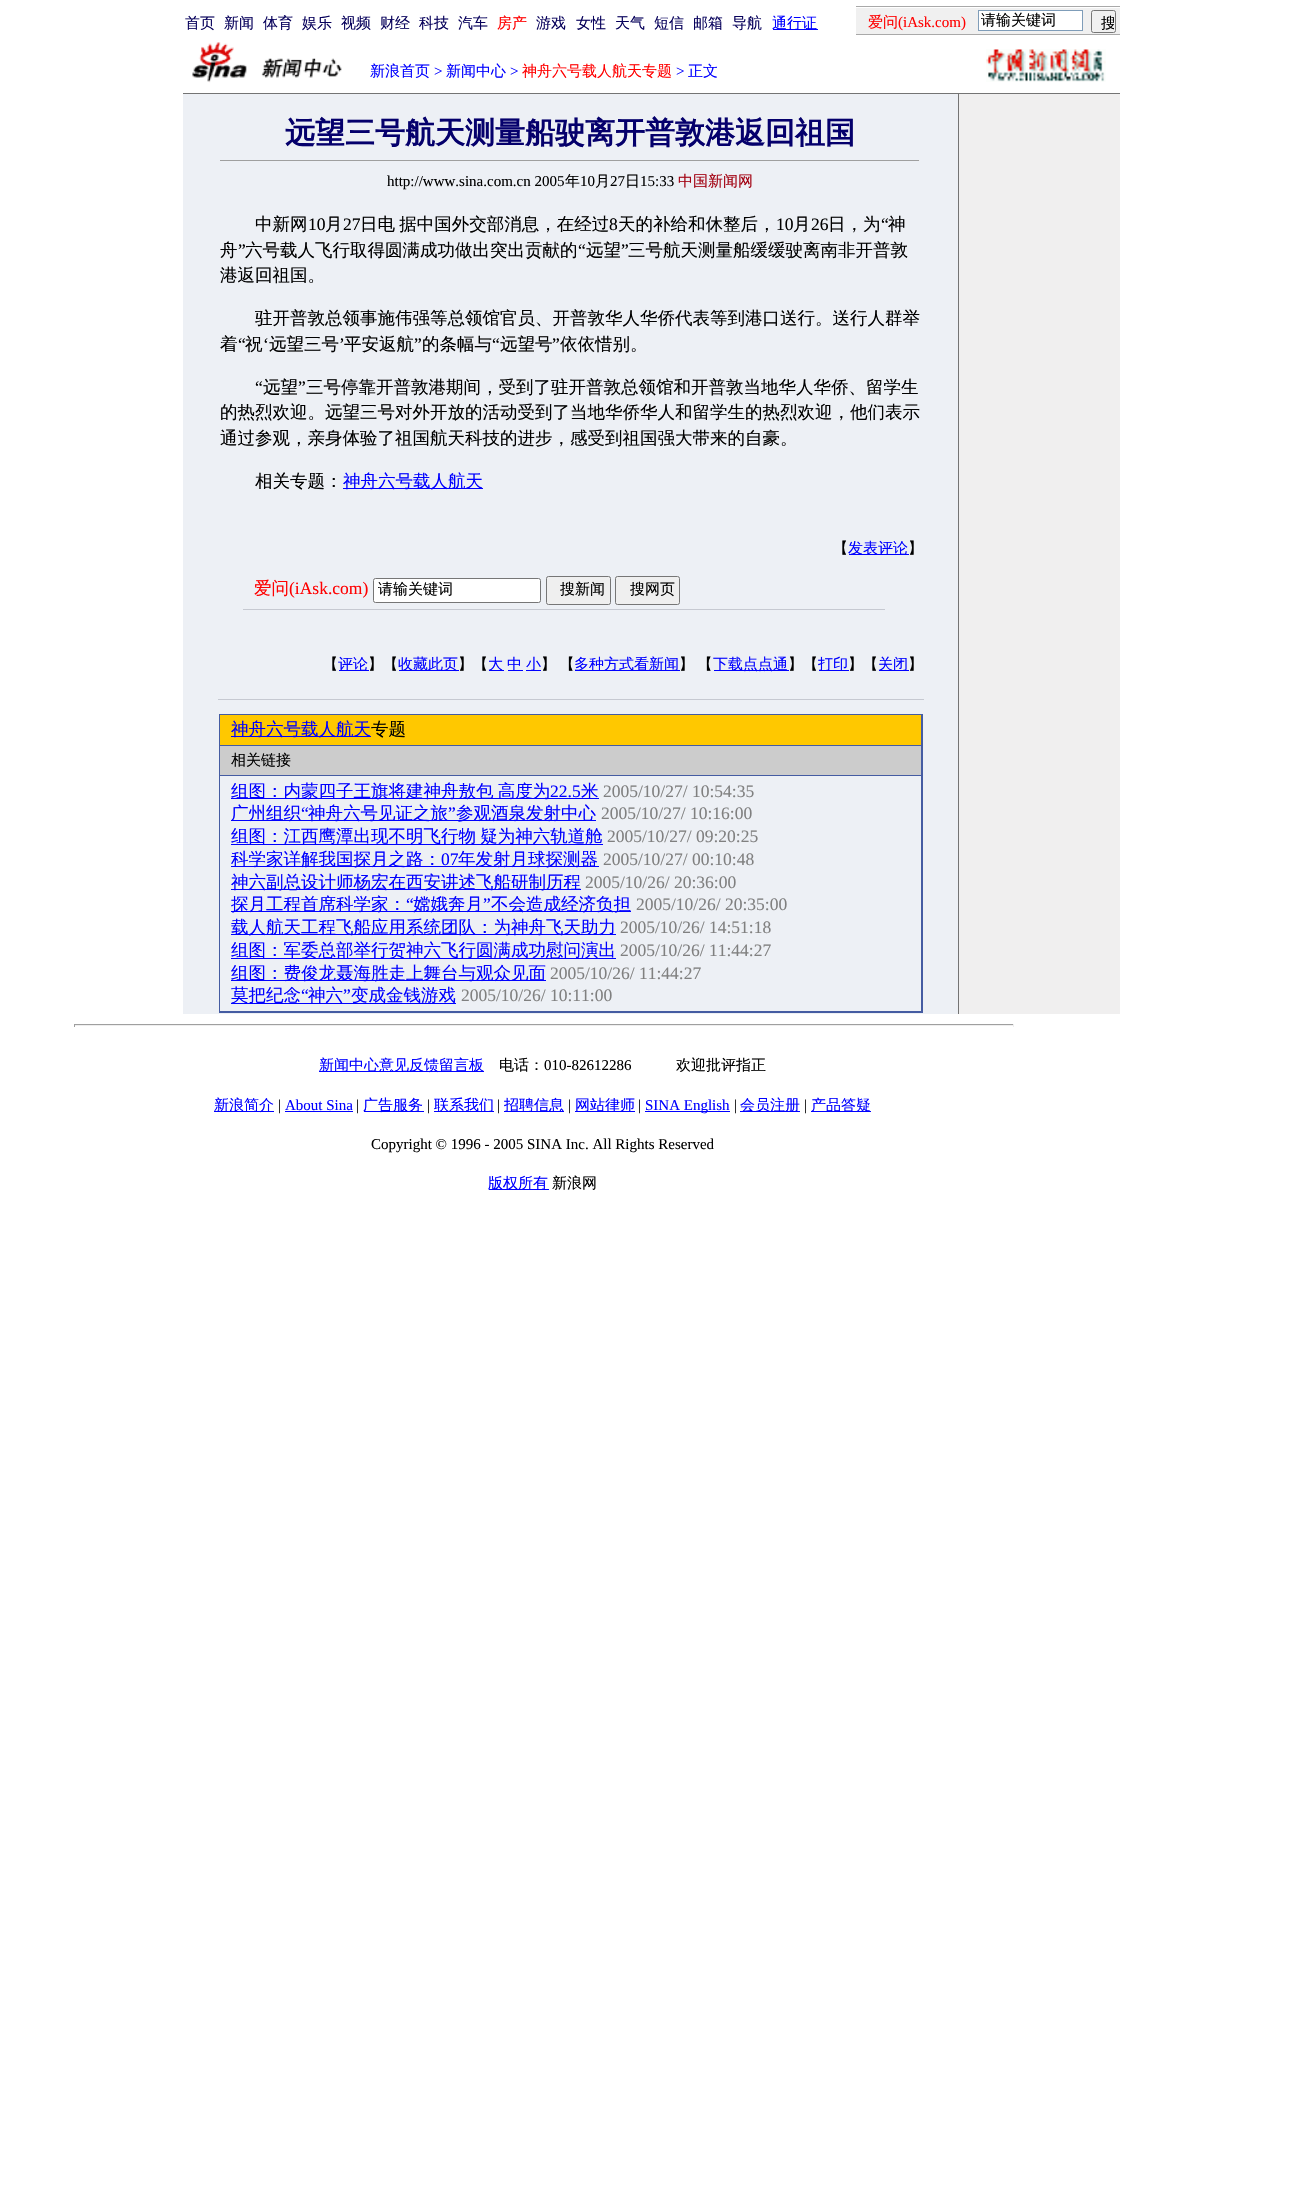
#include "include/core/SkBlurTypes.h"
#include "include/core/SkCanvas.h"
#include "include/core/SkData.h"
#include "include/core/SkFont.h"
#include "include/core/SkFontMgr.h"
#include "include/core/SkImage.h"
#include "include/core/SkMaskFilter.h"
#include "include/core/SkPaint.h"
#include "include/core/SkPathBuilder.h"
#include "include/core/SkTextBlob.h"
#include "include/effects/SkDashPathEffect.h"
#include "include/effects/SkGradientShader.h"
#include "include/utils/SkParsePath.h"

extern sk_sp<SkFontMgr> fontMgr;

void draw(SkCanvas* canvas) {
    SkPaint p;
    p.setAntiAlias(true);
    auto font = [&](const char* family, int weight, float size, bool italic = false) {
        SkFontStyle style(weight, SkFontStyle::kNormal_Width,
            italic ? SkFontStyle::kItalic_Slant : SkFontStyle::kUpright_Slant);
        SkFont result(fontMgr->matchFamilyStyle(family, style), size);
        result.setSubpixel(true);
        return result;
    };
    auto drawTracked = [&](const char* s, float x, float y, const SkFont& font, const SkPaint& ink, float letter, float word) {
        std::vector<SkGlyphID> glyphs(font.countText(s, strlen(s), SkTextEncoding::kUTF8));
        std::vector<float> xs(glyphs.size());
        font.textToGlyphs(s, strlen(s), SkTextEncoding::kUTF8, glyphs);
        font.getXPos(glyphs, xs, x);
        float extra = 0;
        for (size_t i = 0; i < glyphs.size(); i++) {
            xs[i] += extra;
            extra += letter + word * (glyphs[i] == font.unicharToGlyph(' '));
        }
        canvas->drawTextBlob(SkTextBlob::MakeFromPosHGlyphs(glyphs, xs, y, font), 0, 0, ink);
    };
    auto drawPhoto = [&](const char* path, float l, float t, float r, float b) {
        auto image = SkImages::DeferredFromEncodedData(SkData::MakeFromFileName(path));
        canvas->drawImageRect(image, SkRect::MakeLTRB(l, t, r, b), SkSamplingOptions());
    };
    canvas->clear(0xFFFFFFFF);
    auto font1 = font("WenQuanYi Zen Hei", 500, 15);
    p.setColor(0xFF07015B);
    {
        const struct { const char* s; float x, y; } items[] = {
            {"首页", 185, 28},
            {"新闻", 224, 28},
            {"体育", 263, 28},
            {"娱乐", 302, 28},
            {"视频", 341, 28},
            {"财经", 380, 28},
            {"科技", 419, 28},
            {"汽车", 458, 28},
        };
        for (auto [s, x, y] : items) {
            canvas->drawString(s, x, y, font1, p);
        }
    }
    p.setColor(0xFFFF0000);
    canvas->drawString("房产", 497, 28, font1, p);
    p.setColor(0xFF07015B);
    {
        const struct { const char* s; float x, y; } items[] = {
            {"游戏", 536, 28},
            {"女性", 576, 28},
            {"天气", 615, 28},
            {"短信", 654, 28},
            {"邮箱", 693, 28},
            {"导航", 732, 28},
        };
        for (auto [s, x, y] : items) {
            canvas->drawString(s, x, y, font1, p);
        }
    }
    p.setColor(0xFF0000FF);
    canvas->drawRect(SkRect::MakeLTRB(773, 29, 818, 30), p);
    canvas->drawString("通行证", 772, 28, font1, p);
    p.setColor(0xFFA9A9A9);
    canvas->drawRect(SkRect::MakeLTRB(856, 6, 1120, 7), p);
    p.setColor(0xFFF0F0F0);
    canvas->drawRect(SkRect::MakeLTRB(856, 8, 1120, 34), p);
    p.setColor(0xFFFF0000);
    canvas->drawString("爱问", 868, 27, font1, p);
    auto font2 = font("Liberation Serif", 400, 15);
    canvas->drawString("(iAsk.com)", 898, 27, font2, p);
    p.setColor(0xFFFFFFFF);
    canvas->drawRect(SkRect::MakeLTRB(978.5f, 10.5f, 1082.5f, 30.5f), p);
    p.setStyle(SkPaint::kStroke_Style);
    p.setStrokeWidth(1);
    p.setColor(0xFF7F9DB9);
    canvas->drawRect(SkRect::MakeLTRB(978.5f, 10.5f, 1082.5f, 30.5f), p);
    p.setStyle(SkPaint::kFill_Style);
    p.setColor(0xFF000000);
    canvas->drawString("请输关键词", 981, 25, font1, p);
    p.setStyle(SkPaint::kStroke_Style);
    p.setColor(0xFF767676);
    canvas->drawRoundRect(SkRect::MakeLTRB(1091.5f, 10.5f, 1115.5f, 32.5f), 2, 2, p);
    canvas->save();
    canvas->clipRect(SkRect::MakeLTRB(1094, 13, 1114, 30));
    p.setStyle(SkPaint::kFill_Style);
    p.setColor(0xFF000000);
    canvas->drawString("搜", 1101, 28, font1, p);
    canvas->restore();
    p.setColor(0xFFA9A9A9);
    canvas->drawRect(SkRect::MakeLTRB(856, 34, 1120, 35), p);
    drawPhoto("media/1.png", 192, 42, 342, 83);
    p.setColor(0xFF0000FF);
    canvas->drawString("新浪首页", 370, 76, font1, p);
    canvas->drawString(">", 434, 76, font2, p);
    canvas->drawString("新闻中心", 446, 76, font1, p);
    canvas->drawString(">", 510, 76, font2, p);
    p.setColor(0xFFFF0000);
    canvas->drawString("神舟六号载人航天专题", 522, 76, font1, p);
    p.setColor(0xFF0000FF);
    canvas->drawString(">", 676, 76, font2, p);
    canvas->drawString("正文", 688, 76, font1, p);
    drawPhoto("media/2.png", 986, 49, 1106, 82);
    p.setColor(0xFF747474);
    canvas->drawRect(SkRect::MakeLTRB(183, 93, 1120, 94), p);
    p.setColor(0xFFEDF0F5);
    canvas->drawRect(SkRect::MakeLTRB(183, 94, 958, 1014), p);
    auto font3 = font("WenQuanYi Zen Hei", 700, 30);
    p.setColor(0xFF05006C);
    canvas->drawString("远望三号航天测量船驶离开普敦港返回祖国", 285, 143, font3, p);
    p.setColor(0xFF9F9F9F);
    canvas->drawRect(SkRect::MakeLTRB(220, 160, 920, 161), p);
    p.setColor(0xFFEEEEEE);
    canvas->drawRect(SkRect::MakeLTRB(919, 160, 920, 161), p);
    p.setColor(0xFF000000);
    canvas->drawString("http://www.sina.com.cn 2005", 387, 186, font2, p);
    canvas->drawString("年", 565, 186, font1, p);
    canvas->drawString("10", 580, 186, font2, p);
    canvas->drawString("月", 595, 186, font1, p);
    canvas->drawString("27", 610, 186, font2, p);
    canvas->drawString("日", 625, 186, font1, p);
    canvas->drawString("15:33", 640, 186, font2, p);
    p.setColor(0xFFA20010);
    canvas->drawString("中国新闻网", 678, 186, font1, p);
    auto font4 = font("WenQuanYi Zen Hei", 500, 17.5f);
    p.setColor(0xFF000000);
    canvas->drawString("中新网", 255, 230, font4, p);
    auto font5 = font("Liberation Serif", 400, 17.5f);
    canvas->drawString("10", 308, 230, font5, p);
    canvas->drawString("月", 325, 230, font4, p);
    canvas->drawString("27", 343, 230, font5, p);
    drawTracked("日电 据中国外交部消息，在经过", 360, 230, font4, p, 0, -1);
    canvas->drawString("8", 609, 230, font5, p);
    canvas->drawString("天的补给和休整后，", 618, 230, font4, p);
    canvas->drawString("10", 776, 230, font5, p);
    canvas->drawString("月", 793, 230, font4, p);
    canvas->drawString("26", 811, 230, font5, p);
    canvas->drawString("日，为", 828, 230, font4, p);
    canvas->drawString("“", 881, 230, font5, p);
    canvas->drawString("神", 888, 230, font4, p);
    canvas->drawString("舟", 220, 256, font4, p);
    canvas->drawString("”", 238, 256, font5, p);
    canvas->drawString("六号载人飞行取得圆满成功做出突出贡献的", 245, 256, font4, p);
    canvas->drawString("“", 578, 256, font5, p);
    canvas->drawString("远望", 586, 256, font4, p);
    canvas->drawString("”", 621, 256, font5, p);
    {
        const struct { const char* s; float x, y; } items[] = {
            {"三号航天测量船缓缓驶离南非开普敦", 628, 256},
            {"港返回祖国。", 220, 281},
            {"驻开普敦总领事施伟强等总领馆官员、开普敦华人华侨代表等到港口送行。送行人群举", 255, 324},
            {"着", 220, 350},
        };
        for (auto [s, x, y] : items) {
            canvas->drawString(s, x, y, font4, p);
        }
    }
    canvas->drawString("“", 238, 350, font5, p);
    canvas->drawString("祝", 245, 350, font4, p);
    canvas->drawString("‘", 263, 350, font5, p);
    canvas->drawString("远望三号", 269, 350, font4, p);
    canvas->drawString("’", 339, 350, font5, p);
    canvas->drawString("平安返航", 344, 350, font4, p);
    canvas->drawString("”", 414, 350, font5, p);
    canvas->drawString("的条幅与", 422, 350, font4, p);
    canvas->drawString("“", 492, 350, font5, p);
    canvas->drawString("远望号", 500, 350, font4, p);
    canvas->drawString("”", 552, 350, font5, p);
    canvas->drawString("依依惜别。", 560, 350, font4, p);
    canvas->drawString("“", 255, 393, font5, p);
    canvas->drawString("远望", 263, 393, font4, p);
    canvas->drawString("”", 298, 393, font5, p);
    {
        const struct { const char* s; float x, y; } items[] = {
            {"三号停靠开普敦港期间，受到了驻开普敦总领馆和开普敦当地华人华侨、留学生", 306, 393},
            {"的热烈欢迎。远望三号对外开放的活动受到了当地华侨华人和留学生的热烈欢迎，他们表示", 220, 418},
            {"通过参观，亲身体验了祖国航天科技的进步，感受到祖国强大带来的自豪。", 220, 444},
            {"相关专题：", 255, 487},
        };
        for (auto [s, x, y] : items) {
            canvas->drawString(s, x, y, font4, p);
        }
    }
    p.setColor(0xFF0000FF);
    canvas->drawRect(SkRect::MakeLTRB(343, 488, 483, 489), p);
    canvas->drawString("神舟六号载人航天", 343, 487, font4, p);
    p.setColor(0xFF000000);
    canvas->drawString("【", 833, 553, font1, p);
    p.setColor(0xFF0000FF);
    canvas->drawRect(SkRect::MakeLTRB(849, 554, 909, 555), p);
    canvas->drawString("发表评论", 848, 553, font1, p);
    p.setColor(0xFF000000);
    canvas->drawString("】", 908, 553, font1, p);
    p.setColor(0xFFC6C9D1);
    canvas->drawRect(SkRect::MakeLTRB(243, 609, 885, 610), p);
    p.setColor(0xFFFF0000);
    canvas->drawString("爱问", 254, 594, font4, p);
    canvas->drawString("(iAsk.com)", 289, 594, font5, p);
    p.setColor(0xFFFFFFFF);
    canvas->drawRoundRect(SkRect::MakeLTRB(373.5f, 578.5f, 540.5f, 602.5f), 2, 2, p);
    p.setStyle(SkPaint::kStroke_Style);
    p.setColor(0xFF767676);
    canvas->drawRoundRect(SkRect::MakeLTRB(373.5f, 578.5f, 540.5f, 602.5f), 2, 2, p);
    p.setStyle(SkPaint::kFill_Style);
    p.setColor(0xFF000000);
    canvas->drawString("请输关键词", 378, 594, font1, p);
    p.setColor(0xFFEFEFEF);
    canvas->drawRoundRect(SkRect::MakeLTRB(546.5f, 576.5f, 610.5f, 604.5f), 2, 2, p);
    p.setStyle(SkPaint::kStroke_Style);
    p.setColor(0xFF767676);
    canvas->drawRoundRect(SkRect::MakeLTRB(546.5f, 576.5f, 610.5f, 604.5f), 2, 2, p);
    p.setStyle(SkPaint::kFill_Style);
    p.setColor(0xFF000000);
    canvas->drawString("搜新闻", 560, 594, font1, p);
    p.setColor(0xFFEFEFEF);
    canvas->drawRoundRect(SkRect::MakeLTRB(615.5f, 576.5f, 679.5f, 604.5f), 2, 2, p);
    p.setStyle(SkPaint::kStroke_Style);
    p.setColor(0xFF767676);
    canvas->drawRoundRect(SkRect::MakeLTRB(615.5f, 576.5f, 679.5f, 604.5f), 2, 2, p);
    p.setStyle(SkPaint::kFill_Style);
    p.setColor(0xFF000000);
    canvas->drawString("搜网页", 630, 594, font1, p);
    canvas->drawString("【", 323, 669, font1, p);
    p.setColor(0xFF0000FF);
    canvas->drawRect(SkRect::MakeLTRB(339, 670, 369, 671), p);
    canvas->drawString("评论", 338, 669, font1, p);
    p.setColor(0xFF000000);
    canvas->drawString("】【", 368, 669, font1, p);
    p.setColor(0xFF0000FF);
    canvas->drawRect(SkRect::MakeLTRB(399, 670, 459, 671), p);
    canvas->drawString("收藏此页", 398, 669, font1, p);
    p.setColor(0xFF000000);
    canvas->drawString("】【", 458, 669, font1, p);
    p.setColor(0xFF0000FF);
    canvas->drawRect(SkRect::MakeLTRB(489, 670, 504, 671), p);
    canvas->drawString("大", 488, 669, font1, p);
    canvas->drawRect(SkRect::MakeLTRB(508, 670, 523, 671), p);
    canvas->drawString("中", 507, 669, font1, p);
    canvas->drawRect(SkRect::MakeLTRB(526, 670, 541, 671), p);
    canvas->drawString("小", 526, 669, font1, p);
    p.setColor(0xFF000000);
    drawTracked("】 【", 541, 669, font1, p, 0, -1);
    p.setColor(0xFF0000FF);
    canvas->drawRect(SkRect::MakeLTRB(575, 670, 680, 671), p);
    canvas->drawString("多种方式看新闻", 574, 669, font1, p);
    p.setColor(0xFF000000);
    drawTracked("】 【", 679, 669, font1, p, 0, -1);
    p.setColor(0xFF0000FF);
    canvas->drawRect(SkRect::MakeLTRB(714, 670, 789, 671), p);
    canvas->drawString("下载点点通", 713, 669, font1, p);
    p.setColor(0xFF000000);
    canvas->drawString("】【", 788, 669, font1, p);
    p.setColor(0xFF0000FF);
    canvas->drawRect(SkRect::MakeLTRB(819, 670, 849, 671), p);
    canvas->drawString("打印", 818, 669, font1, p);
    p.setColor(0xFF000000);
    canvas->drawString("】【", 848, 669, font1, p);
    p.setColor(0xFF0000FF);
    canvas->drawRect(SkRect::MakeLTRB(879, 670, 909, 671), p);
    canvas->drawString("关闭", 878, 669, font1, p);
    p.setColor(0xFF000000);
    canvas->drawString("】", 908, 669, font1, p);
    {
        const struct { float l, t, r, b; SkColor color; } items[] = {
            {218, 699, 924, 700, 0xFFC6C9D1},
            {219, 714, 923, 1013, 0xFF455CA2},
            {220, 715, 921, 745, 0xFFFFC800},
            {231, 736, 371, 737, 0xFF0000FF},
        };
        for (auto [l, t, r, b, color] : items) {
            p.setColor(color);
            canvas->drawRect(SkRect::MakeLTRB(l, t, r, b), p);
        }
    }
    canvas->drawString("神舟六号载人航天", 231, 735, font4, p);
    p.setColor(0xFF000000);
    canvas->drawString("专题", 371, 735, font4, p);
    p.setColor(0xFFCCCCCC);
    canvas->drawRect(SkRect::MakeLTRB(220, 746, 921, 775), p);
    p.setColor(0xFF000000);
    canvas->drawString("相关链接", 231, 765, font1, p);
    p.setColor(0xFFEDF0F5);
    canvas->drawRect(SkRect::MakeLTRB(220, 776, 921, 1011), p);
    p.setColor(0xFF0000FF);
    canvas->drawRect(SkRect::MakeLTRB(231, 798, 599, 799), p);
    drawTracked("组图：内蒙四子王旗将建神舟敖包 高度为", 231, 797, font4, p, 0, -1);
    canvas->drawString("22.5", 550, 797, font5, p);
    canvas->drawString("米", 581, 797, font4, p);
    p.setColor(0xFF808080);
    canvas->drawString("2005/10/27/ 10:54:35", 603, 797, font5, p);
    p.setColor(0xFF0000FF);
    canvas->drawRect(SkRect::MakeLTRB(231, 820, 596, 821), p);
    canvas->drawString("广州组织", 231, 819, font4, p);
    canvas->drawString("“", 301, 819, font5, p);
    canvas->drawString("神舟六号见证之旅", 308, 819, font4, p);
    canvas->drawString("”", 448, 819, font5, p);
    canvas->drawString("参观酒泉发射中心", 456, 819, font4, p);
    p.setColor(0xFF808080);
    canvas->drawString("2005/10/27/ 10:16:00", 601, 819, font5, p);
    p.setColor(0xFF0000FF);
    canvas->drawRect(SkRect::MakeLTRB(231, 844, 603, 845), p);
    drawTracked("组图：江西鹰潭出现不明飞行物 疑为神六轨道舱", 231, 842, font4, p, 0, -1);
    p.setColor(0xFF808080);
    canvas->drawString("2005/10/27/ 09:20:25", 607, 842, font5, p);
    p.setColor(0xFF0000FF);
    canvas->drawRect(SkRect::MakeLTRB(231, 866, 599, 867), p);
    canvas->drawString("科学家详解我国探月之路：", 231, 865, font4, p);
    canvas->drawString("07", 441, 865, font5, p);
    canvas->drawString("年发射月球探测器", 458, 865, font4, p);
    p.setColor(0xFF808080);
    canvas->drawString("2005/10/27/ 00:10:48", 603, 865, font5, p);
    p.setColor(0xFF0000FF);
    canvas->drawRect(SkRect::MakeLTRB(231, 889, 581, 890), p);
    canvas->drawString("神六副总设计师杨宏在西安讲述飞船研制历程", 231, 888, font4, p);
    p.setColor(0xFF808080);
    canvas->drawString("2005/10/26/ 20:36:00", 585, 888, font5, p);
    p.setColor(0xFF0000FF);
    canvas->drawRect(SkRect::MakeLTRB(231, 911, 631, 912), p);
    canvas->drawString("探月工程首席科学家：", 231, 910, font4, p);
    canvas->drawString("“", 406, 910, font5, p);
    canvas->drawString("嫦娥奔月", 413, 910, font4, p);
    canvas->drawString("”", 483, 910, font5, p);
    canvas->drawString("不会造成经济负担", 491, 910, font4, p);
    p.setColor(0xFF808080);
    canvas->drawString("2005/10/26/ 20:35:00", 636, 910, font5, p);
    p.setColor(0xFF0000FF);
    canvas->drawRect(SkRect::MakeLTRB(231, 934, 616, 935), p);
    canvas->drawString("载人航天工程飞船应用系统团队：为神舟飞天助力", 231, 933, font4, p);
    p.setColor(0xFF808080);
    canvas->drawString("2005/10/26/ 14:51:18", 620, 933, font5, p);
    p.setColor(0xFF0000FF);
    canvas->drawRect(SkRect::MakeLTRB(231, 958, 616, 959), p);
    canvas->drawString("组图：军委总部举行贺神六飞行圆满成功慰问演出", 231, 956, font4, p);
    p.setColor(0xFF808080);
    canvas->drawString("2005/10/26/ 11:44:27", 620, 956, font5, p);
    p.setColor(0xFF0000FF);
    canvas->drawRect(SkRect::MakeLTRB(231, 980, 546, 981), p);
    canvas->drawString("组图：费俊龙聂海胜走上舞台与观众见面", 231, 979, font4, p);
    p.setColor(0xFF808080);
    canvas->drawString("2005/10/26/ 11:44:27", 550, 979, font5, p);
    p.setColor(0xFF0000FF);
    canvas->drawRect(SkRect::MakeLTRB(231, 1003, 456, 1004), p);
    canvas->drawString("莫把纪念", 231, 1001, font4, p);
    canvas->drawString("“", 301, 1001, font5, p);
    canvas->drawString("神六", 308, 1001, font4, p);
    canvas->drawString("”", 343, 1001, font5, p);
    canvas->drawString("变成金钱游戏", 351, 1001, font4, p);
    p.setColor(0xFF808080);
    canvas->drawString("2005/10/26/ 10:11:00", 461, 1001, font5, p);
    {
        const struct { float l, t, r, b; SkColor color; } items[] = {
            {958, 94, 959, 1014, 0xFF747474},
            {959, 94, 1120, 1014, 0xFFF0EFEF},
            {74, 1024, 1014, 1025, 0xFF9F9F9F},
            {1013, 1024, 1014, 1027, 0xFFEEEEEE},
            {74, 1025, 1014, 1026, 0xFFEEEEEE},
            {74, 1024, 75, 1027, 0xFF9F9F9F},
            {319, 1071, 484, 1072, 0xFF0000FF},
        };
        for (auto [l, t, r, b, color] : items) {
            p.setColor(color);
            canvas->drawRect(SkRect::MakeLTRB(l, t, r, b), p);
        }
    }
    canvas->drawString("新闻中心意见反馈留言板", 319, 1070, font1, p);
    p.setColor(0xFF000000);
    canvas->drawString("电话：", 499, 1070, font1, p);
    canvas->drawString("010-82612286", 544, 1070, font2, p);
    canvas->drawString("欢迎批评指正", 676, 1070, font1, p);
    p.setColor(0xFF0000FF);
    canvas->drawRect(SkRect::MakeLTRB(214, 1111, 274, 1112), p);
    canvas->drawString("新浪简介", 214, 1110, font1, p);
    p.setColor(0xFF000000);
    canvas->drawString("|", 278, 1110, font2, p);
    p.setColor(0xFF0000FF);
    canvas->drawString("About Sina", 285, 1110, font2, p);
    canvas->drawRect(SkRect::MakeLTRB(285, 1111, 353, 1112), p);
    p.setColor(0xFF000000);
    canvas->drawString("|", 356, 1110, font2, p);
    p.setColor(0xFF0000FF);
    canvas->drawRect(SkRect::MakeLTRB(364, 1111, 424, 1112), p);
    canvas->drawString("广告服务", 363, 1110, font1, p);
    p.setColor(0xFF000000);
    canvas->drawString("|", 427, 1110, font2, p);
    p.setColor(0xFF0000FF);
    canvas->drawRect(SkRect::MakeLTRB(434, 1111, 494, 1112), p);
    canvas->drawString("联系我们", 434, 1110, font1, p);
    p.setColor(0xFF000000);
    canvas->drawString("|", 497, 1110, font2, p);
    p.setColor(0xFF0000FF);
    canvas->drawRect(SkRect::MakeLTRB(504, 1111, 564, 1112), p);
    canvas->drawString("招聘信息", 504, 1110, font1, p);
    p.setColor(0xFF000000);
    canvas->drawString("|", 568, 1110, font2, p);
    p.setColor(0xFF0000FF);
    canvas->drawRect(SkRect::MakeLTRB(575, 1111, 635, 1112), p);
    canvas->drawString("网站律师", 575, 1110, font1, p);
    p.setColor(0xFF000000);
    canvas->drawString("|", 638, 1110, font2, p);
    p.setColor(0xFF0000FF);
    canvas->drawRect(SkRect::MakeLTRB(645, 1111, 730, 1112), p);
    canvas->drawString("SINA English", 645, 1110, font2, p);
    p.setColor(0xFF000000);
    canvas->drawString("|", 734, 1110, font2, p);
    p.setColor(0xFF0000FF);
    canvas->drawRect(SkRect::MakeLTRB(740, 1111, 800, 1112), p);
    canvas->drawString("会员注册", 740, 1110, font1, p);
    p.setColor(0xFF000000);
    canvas->drawString("|", 804, 1110, font2, p);
    p.setColor(0xFF0000FF);
    canvas->drawRect(SkRect::MakeLTRB(811, 1111, 871, 1112), p);
    canvas->drawString("产品答疑", 811, 1110, font1, p);
    p.setColor(0xFF000000);
    canvas->drawString("Copyright © 1996 - 2005 SINA Inc. All Rights Reserved", 371, 1149, font2, p);
    p.setColor(0xFF0000FF);
    canvas->drawRect(SkRect::MakeLTRB(489, 1189, 549, 1190), p);
    canvas->drawString("版权所有", 488, 1188, font1, p);
    p.setColor(0xFF000000);
    canvas->drawString("新浪网", 552, 1188, font1, p);
}
